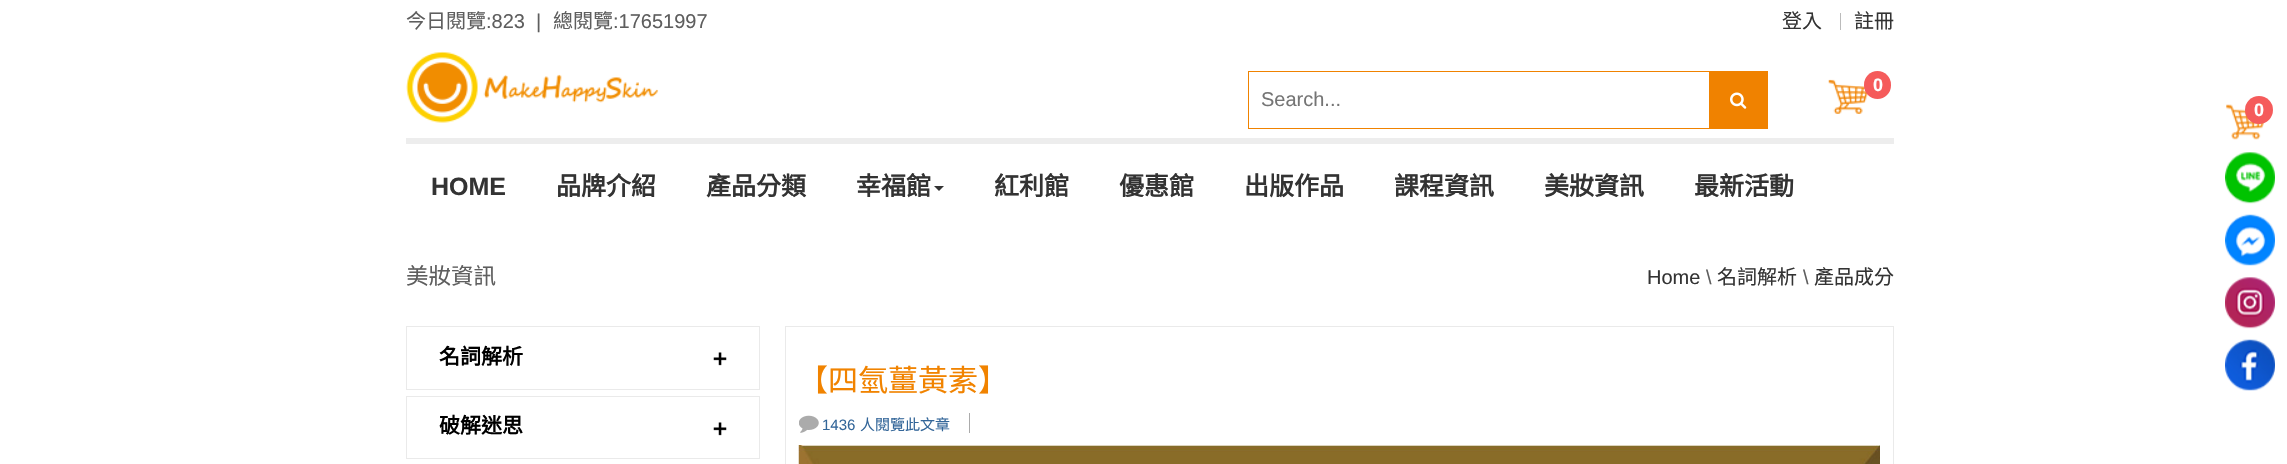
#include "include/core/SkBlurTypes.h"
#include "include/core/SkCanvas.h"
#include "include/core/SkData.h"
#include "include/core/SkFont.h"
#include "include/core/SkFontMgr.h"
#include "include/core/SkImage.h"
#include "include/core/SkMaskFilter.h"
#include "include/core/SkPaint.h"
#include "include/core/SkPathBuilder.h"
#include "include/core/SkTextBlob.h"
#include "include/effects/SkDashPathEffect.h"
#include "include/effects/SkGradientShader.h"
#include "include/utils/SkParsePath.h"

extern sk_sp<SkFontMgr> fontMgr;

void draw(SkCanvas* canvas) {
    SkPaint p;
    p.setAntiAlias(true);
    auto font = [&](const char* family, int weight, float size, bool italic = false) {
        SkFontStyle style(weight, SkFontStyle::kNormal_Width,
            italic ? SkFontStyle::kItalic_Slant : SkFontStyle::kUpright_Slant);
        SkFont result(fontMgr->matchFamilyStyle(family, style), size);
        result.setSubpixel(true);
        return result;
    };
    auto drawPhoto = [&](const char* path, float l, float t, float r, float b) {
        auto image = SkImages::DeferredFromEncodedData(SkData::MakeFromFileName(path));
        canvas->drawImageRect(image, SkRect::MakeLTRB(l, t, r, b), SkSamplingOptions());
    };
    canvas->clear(0xFFFFFFFF);
    auto font1 = font("Noto Sans CJK TC", 400, 20);
    p.setColor(0xFF5E5E5E);
    canvas->drawString("今日閱覽", 406, 28, font1, p);
    auto font2 = font("Liberation Sans", 400, 20);
    canvas->drawString(":823  |", 486, 28, font2, p);
    canvas->drawString("總閱覽", 553, 28, font1, p);
    canvas->drawString(":17651997", 613, 28, font2, p);
    p.setColor(0xFF333333);
    canvas->drawString("登入", 1782, 28, font1, p);
    p.setColor(0xFFBBBBBB);
    canvas->drawRect(SkRect::MakeLTRB(1840, 13, 1841, 30), p);
    p.setColor(0xFF333333);
    canvas->drawString("註冊", 1854, 28, font1, p);
    drawPhoto("media/1.png", 406, 51, 659, 123);
    drawPhoto("media/2.png", 1828, 79, 1868, 114);
    p.setColor(0xFFF55B5B);
    canvas->drawRoundRect(SkRect::MakeLTRB(1864, 71, 1891, 99), 13.5f, 13.5f, p);
    auto font3 = font("Liberation Sans", 700, 18);
    p.setColor(0xFFFFFFFF);
    canvas->drawString("0", 1873, 91, font3, p);
    p.setStyle(SkPaint::kStroke_Style);
    p.setStrokeWidth(1);
    p.setColor(0xFFF08200);
    canvas->drawRect(SkRect::MakeLTRB(1248.5f, 71.5f, 1709.5f, 128.5f), p);
    p.setStyle(SkPaint::kFill_Style);
    p.setColor(0xFF757575);
    canvas->drawString("Search...", 1261, 106, font2, p);
    p.setColor(0xFFF08200);
    canvas->drawRect(SkRect::MakeLTRB(1710, 71, 1768, 129), p);
    drawPhoto("media/3.png", 1730, 92, 1747, 109);
    p.setColor(0xFFEDEDED);
    canvas->drawRect(SkRect::MakeLTRB(406, 138, 1894, 144), p);
    auto font4 = font("Liberation Sans", 700, 25);
    p.setColor(0xFF333333);
    canvas->drawString("HOME", 431, 195, font4, p);
    auto font5 = font("Noto Sans CJK TC", 700, 25);
    {
        const struct { const char* s; float x, y; } items[] = {
            {"品牌介紹", 556, 195},
            {"產品分類", 706, 195},
            {"幸福館", 856, 195},
        };
        for (auto [s, x, y] : items) {
            canvas->drawString(s, x, y, font5, p);
        }
    }
    canvas->drawPath(SkPathBuilder().moveTo(934, 186).lineTo(944, 186).lineTo(939, 191).close().detach(), p);
    {
        const struct { const char* s; float x, y; } items[] = {
            {"紅利館", 994, 195},
            {"優惠館", 1119, 195},
            {"出版作品", 1244, 195},
            {"課程資訊", 1394, 195},
            {"美妝資訊", 1544, 195},
            {"最新活動", 1694, 195},
        };
        for (auto [s, x, y] : items) {
            canvas->drawString(s, x, y, font5, p);
        }
    }
    auto font6 = font("Noto Sans CJK TC", 400, 22.5f);
    p.setColor(0xFF5E5E5E);
    canvas->drawString("美妝資訊", 406, 284, font6, p);
    p.setColor(0xFF333333);
    canvas->drawString("Home", 1647, 284, font2, p);
    p.setColor(0xFF5E5E5E);
    canvas->drawString("\\", 1706, 284, font2, p);
    p.setColor(0xFF333333);
    canvas->drawString("名詞解析", 1717, 284, font1, p);
    p.setColor(0xFF5E5E5E);
    canvas->drawString("\\", 1803, 284, font2, p);
    p.setColor(0xFF333333);
    canvas->drawString("產品成分", 1814, 284, font1, p);
    p.setStyle(SkPaint::kStroke_Style);
    p.setColor(0xFFEAEAEA);
    canvas->drawRect(SkRect::MakeLTRB(406.5f, 326.5f, 759.5f, 389.5f), p);
    auto font7 = font("Noto Sans CJK TC", 700, 21);
    p.setStyle(SkPaint::kFill_Style);
    p.setColor(0xFF000000);
    canvas->drawString("名詞解析", 439, 364, font7, p);
    drawPhoto("media/4.png", 713, 352, 727, 366);
    p.setStyle(SkPaint::kStroke_Style);
    p.setColor(0xFFEAEAEA);
    canvas->drawRect(SkRect::MakeLTRB(406.5f, 396.5f, 759.5f, 458.5f), p);
    p.setStyle(SkPaint::kFill_Style);
    p.setColor(0xFF000000);
    canvas->drawString("破解迷思", 439, 433, font7, p);
    drawPhoto("media/4.png", 713, 422, 727, 436);
    p.setStyle(SkPaint::kStroke_Style);
    p.setColor(0xFFEAEAEA);
    canvas->drawRect(SkRect::MakeLTRB(785.5f, 326.5f, 1893.5f, 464.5f), p);
    auto font8 = font("Noto Sans CJK TC", 400, 30);
    p.setStyle(SkPaint::kFill_Style);
    p.setColor(0xFFF18300);
    canvas->drawString("【四氫薑黃素】", 798, 391, font8, p);
    p.setColor(0xFFABABAB);
    canvas->drawRect(SkRect::MakeLTRB(969, 413, 970, 433), p);
    drawPhoto("media/5.png", 799, 415, 819, 433);
    auto font9 = font("Liberation Sans", 400, 15);
    p.setColor(0xFF336699);
    canvas->drawString("1436", 822, 430, font9, p);
    auto font10 = font("Noto Sans CJK TC", 400, 15);
    canvas->drawString("人閱覽此文章", 860, 430, font10, p);
    drawPhoto("media/6.png", 798, 445, 1880, 464);
    drawPhoto("media/7.png", 2226, 104, 2264, 140);
    p.setColor(0xFFF55B5B);
    canvas->drawCircle(2259, 110, 14, p);
    p.setColor(0xFFFFFFFF);
    canvas->drawString("0", 2254, 116, font3, p);
    drawPhoto("media/8.png", 2225, 152, 2275, 204);
    drawPhoto("media/9.png", 2225, 214, 2275, 266);
    drawPhoto("media/10.png", 2225, 277, 2275, 329);
    drawPhoto("media/11.png", 2225, 339, 2275, 391);
}
